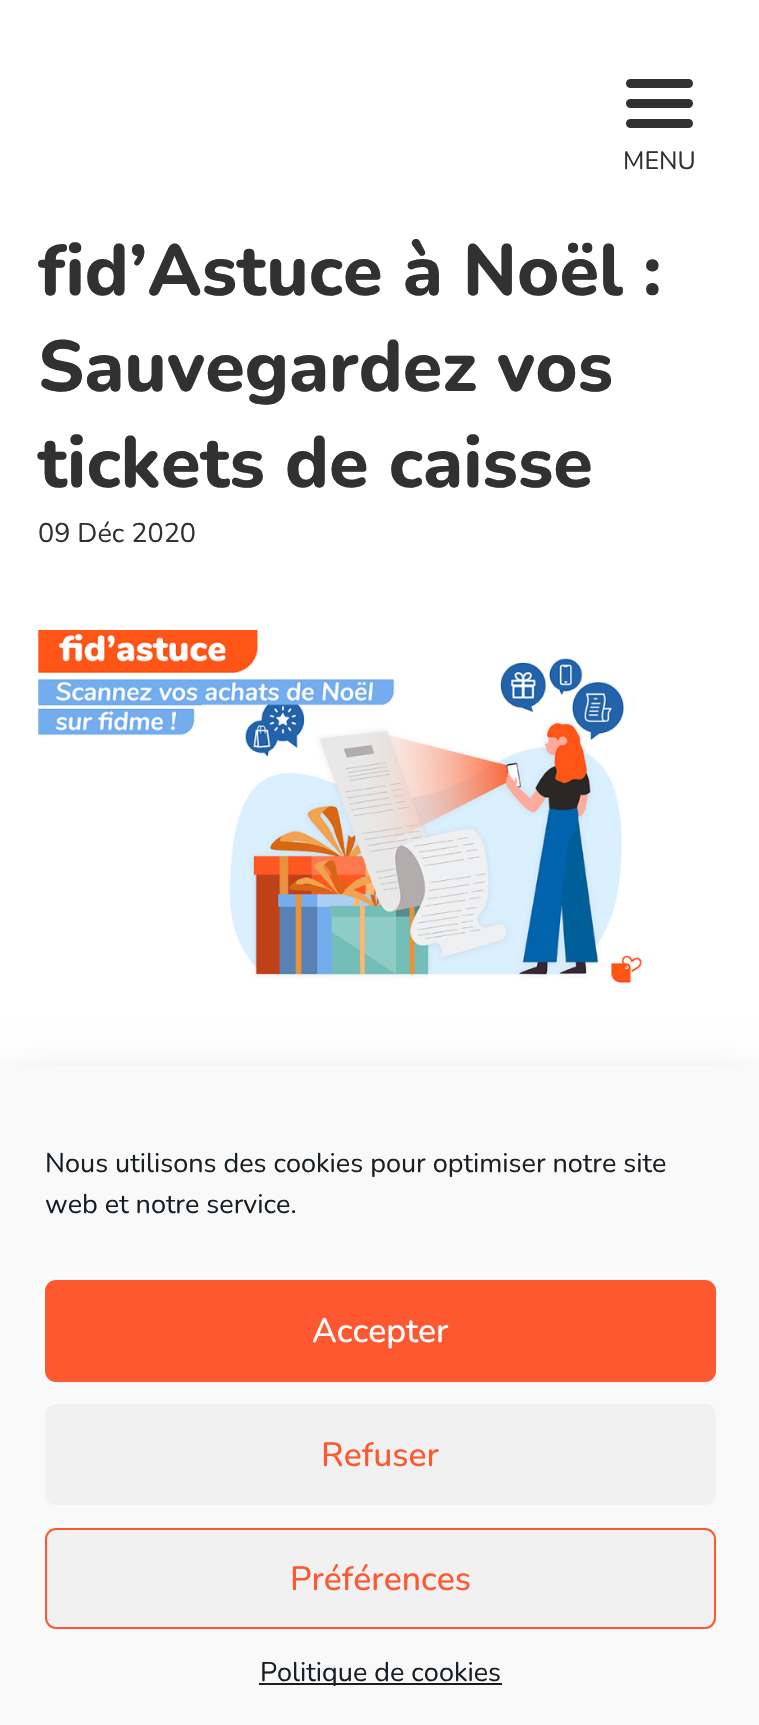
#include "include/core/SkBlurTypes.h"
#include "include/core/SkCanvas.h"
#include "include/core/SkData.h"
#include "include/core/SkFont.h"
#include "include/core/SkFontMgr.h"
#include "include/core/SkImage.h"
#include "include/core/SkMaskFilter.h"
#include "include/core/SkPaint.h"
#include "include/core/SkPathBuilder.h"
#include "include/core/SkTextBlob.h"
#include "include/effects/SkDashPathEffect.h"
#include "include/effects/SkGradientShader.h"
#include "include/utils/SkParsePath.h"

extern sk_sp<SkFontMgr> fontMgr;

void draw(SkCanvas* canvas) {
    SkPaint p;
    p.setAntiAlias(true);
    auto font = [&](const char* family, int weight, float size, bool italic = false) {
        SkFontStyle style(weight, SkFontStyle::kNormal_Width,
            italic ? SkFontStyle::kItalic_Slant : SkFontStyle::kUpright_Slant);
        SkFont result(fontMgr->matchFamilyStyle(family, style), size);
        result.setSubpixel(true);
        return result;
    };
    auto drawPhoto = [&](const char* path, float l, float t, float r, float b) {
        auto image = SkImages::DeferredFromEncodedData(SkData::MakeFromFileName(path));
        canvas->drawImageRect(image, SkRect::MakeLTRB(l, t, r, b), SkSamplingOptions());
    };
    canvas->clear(0xFFFFFFFF);
    p.setColor(0xFF313131);
    canvas->drawRoundRect(SkRect::MakeLTRB(626, 99, 693, 108), 4.5f, 4.5f, p);
    canvas->drawRoundRect(SkRect::MakeLTRB(626, 79, 693, 88), 4.5f, 4.5f, p);
    canvas->drawRoundRect(SkRect::MakeLTRB(626, 119, 693, 128), 4.5f, 4.5f, p);
    auto font1 = font("Nunito", 400, 25);
    canvas->drawString("MENU", 623, 169, font1, p);
    auto font2 = font("Nunito", 800, 72);
    {
        const struct { const char* s; float x, y; } items[] = {
            {"fid’Astuce à Noël :", 38, 295},
            {"Sauvegardez vos", 38, 391},
            {"tickets de caisse", 38, 487},
        };
        for (auto [s, x, y] : items) {
            canvas->drawString(s, x, y, font2, p);
        }
    }
    auto font3 = font("Nunito", 400, 27);
    canvas->drawString("09 Déc 2020", 38, 542, font3, p);
    drawPhoto("media/1.png", 38, 630, 642, 983);
    p.setColor(0x30000000);
    p.setMaskFilter(SkMaskFilter::MakeBlur(kNormal_SkBlurStyle, 22.5f));
    canvas->drawRect(SkRect::MakeLTRB(0, 1087, 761, 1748), p);
    p.setMaskFilter(nullptr);
    p.setColor(0xFFF9F9F9);
    canvas->drawRect(SkRect::MakeLTRB(0, 1066, 759, 1725), p);
    p.setColor(0xFF191E23);
    canvas->drawString("Nous utilisons des cookies pour optimiser notre site", 45, 1172, font3, p);
    canvas->drawString("web et notre service.", 45, 1213, font3, p);
    p.setColor(0xFFFD5830);
    canvas->drawRoundRect(SkRect::MakeLTRB(46, 1281, 715, 1381), 10, 10, p);
    p.setStyle(SkPaint::kStroke_Style);
    p.setStrokeWidth(2);
    canvas->drawRoundRect(SkRect::MakeLTRB(46, 1281, 715, 1381), 10, 10, p);
    auto font4 = font("Nunito", 500, 33.75f);
    p.setStyle(SkPaint::kFill_Style);
    p.setColor(0xFFFFFFFF);
    canvas->drawString("Accepter", 312, 1342, font4, p);
    p.setColor(0xFFF1F1F1);
    canvas->drawRoundRect(SkRect::MakeLTRB(45, 1404, 716, 1505), 11, 11, p);
    p.setColor(0xFFFD5830);
    canvas->drawString("Refuser", 321, 1466, font4, p);
    p.setColor(0xFFF1F1F1);
    canvas->drawRoundRect(SkRect::MakeLTRB(46, 1529, 715, 1628), 10, 10, p);
    p.setStyle(SkPaint::kStroke_Style);
    p.setColor(0xFFFD5830);
    canvas->drawRoundRect(SkRect::MakeLTRB(46, 1529, 715, 1628), 10, 10, p);
    p.setStyle(SkPaint::kFill_Style);
    canvas->drawString("Préférences", 290, 1590, font4, p);
    p.setColor(0xFF191E23);
    canvas->drawRect(SkRect::MakeLTRB(259, 1683, 502, 1685), p);
    canvas->drawString("Politique de cookies", 260, 1681, font3, p);
}
